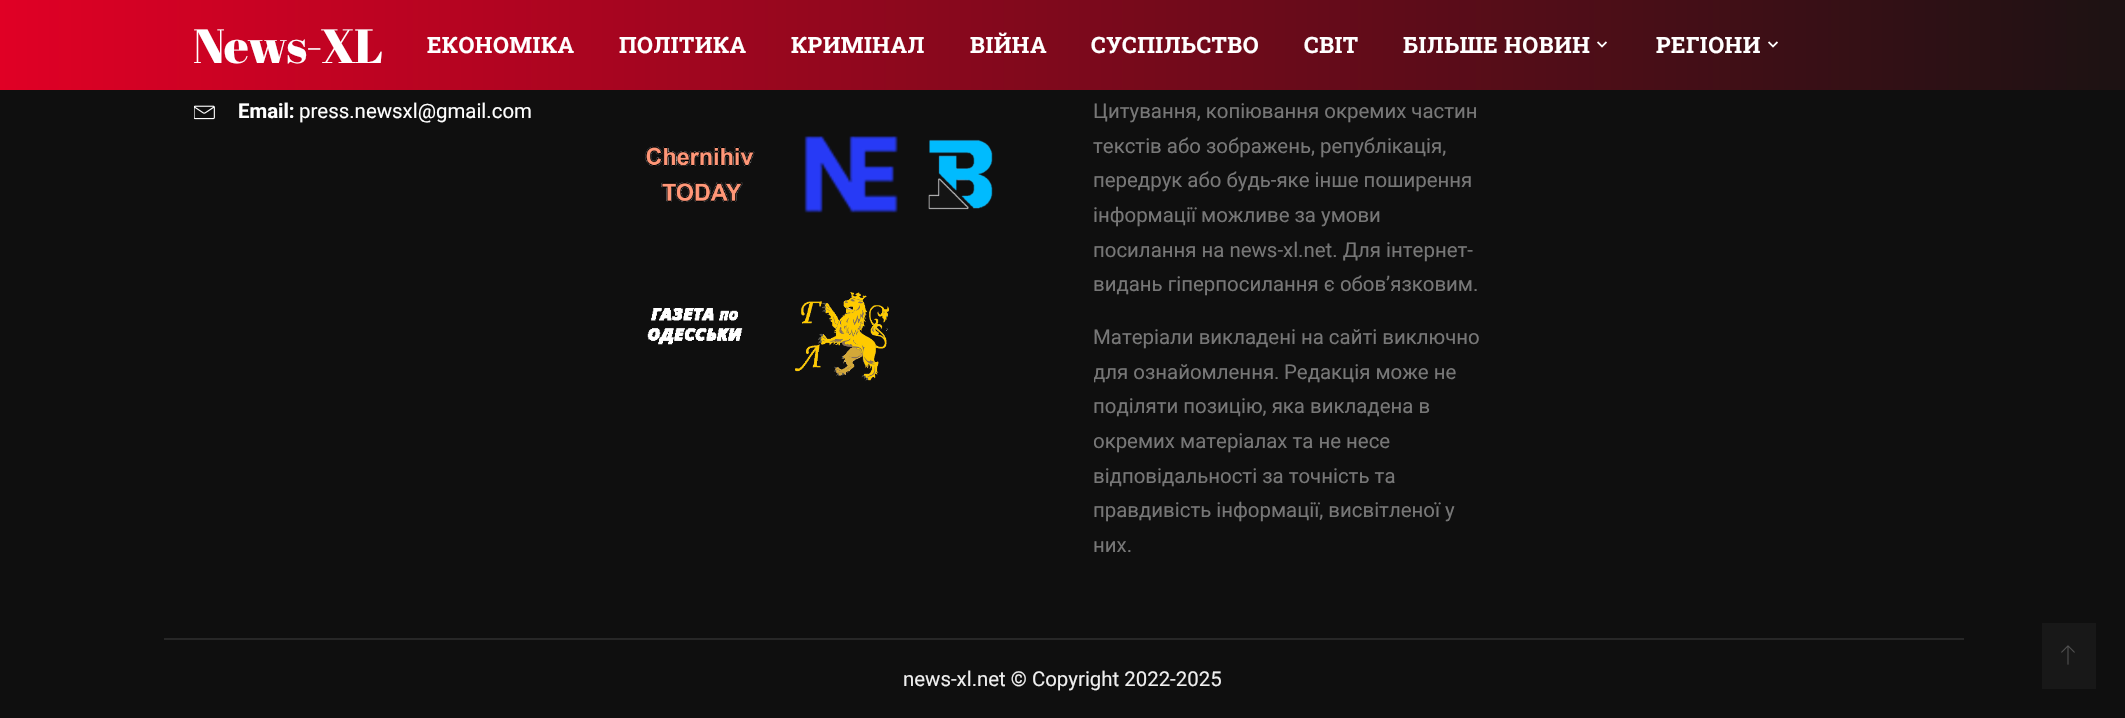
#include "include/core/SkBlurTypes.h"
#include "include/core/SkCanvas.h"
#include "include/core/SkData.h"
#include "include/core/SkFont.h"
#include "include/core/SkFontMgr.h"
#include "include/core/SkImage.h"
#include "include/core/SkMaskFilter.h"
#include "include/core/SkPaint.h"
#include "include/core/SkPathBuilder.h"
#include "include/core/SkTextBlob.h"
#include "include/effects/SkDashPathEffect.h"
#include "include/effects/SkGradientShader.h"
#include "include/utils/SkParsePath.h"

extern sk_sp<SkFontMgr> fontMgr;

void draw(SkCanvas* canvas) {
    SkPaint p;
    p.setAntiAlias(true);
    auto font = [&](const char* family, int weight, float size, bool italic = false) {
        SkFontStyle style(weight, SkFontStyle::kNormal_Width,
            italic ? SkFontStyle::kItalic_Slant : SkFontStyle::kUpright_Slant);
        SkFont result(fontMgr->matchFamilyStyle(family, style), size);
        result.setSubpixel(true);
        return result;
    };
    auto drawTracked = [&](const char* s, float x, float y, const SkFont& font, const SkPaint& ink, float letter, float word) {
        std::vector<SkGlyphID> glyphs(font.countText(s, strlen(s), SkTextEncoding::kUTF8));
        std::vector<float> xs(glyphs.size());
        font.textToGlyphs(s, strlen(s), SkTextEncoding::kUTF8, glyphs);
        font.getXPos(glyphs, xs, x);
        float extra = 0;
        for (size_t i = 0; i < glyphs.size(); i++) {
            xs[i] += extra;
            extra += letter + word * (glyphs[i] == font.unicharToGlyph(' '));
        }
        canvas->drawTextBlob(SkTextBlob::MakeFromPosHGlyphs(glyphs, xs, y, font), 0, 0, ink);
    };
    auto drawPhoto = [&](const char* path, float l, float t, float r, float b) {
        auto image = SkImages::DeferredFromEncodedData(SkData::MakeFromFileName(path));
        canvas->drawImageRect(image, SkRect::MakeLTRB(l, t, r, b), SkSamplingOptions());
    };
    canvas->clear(0xFF0F0F0F);
    {
        const SkColor colors[] = {0xFFE00025, 0xFF1C1213};
        const float stops[] = {0, 1};
        const SkPoint ends[] = {{0, 45}, {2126, 45}};
        p.setShader(SkGradientShader::MakeLinear(ends, colors, stops, 2, SkTileMode::kClamp));
        p.setAlpha(255);
    }
    canvas->drawRect(SkRect::MakeLTRB(0, 0, 2125, 90), p);
    auto font1 = font("Abril Fatface", 400, 48);
    p.setShader(nullptr);
    p.setColor(0xFFFFFFFF);
    drawTracked("News-XL", 193, 63, font1, p, -1.25f, 0);
    auto font2 = font("Roboto Slab", 700, 22.5f);
    {
        const struct { const char* s; float x, y; } items[] = {
            {"ЕКОНОМІКА", 427, 53},
            {"ПОЛІТИКА", 619, 53},
            {"КРИМІНАЛ", 791, 53},
            {"ВІЙНА", 970, 53},
            {"СУСПІЛЬСТВО", 1091, 53},
            {"СВІТ", 1304, 53},
            {"БІЛЬШЕ НОВИН", 1403, 53},
        };
        for (auto [s, x, y] : items) {
            drawTracked(s, x, y, font2, p, 0.5f, 0);
        }
    }
    drawPhoto("media/1.png", 1597, 41, 1607, 48);
    drawTracked("РЕГІОНИ", 1656, 53, font2, p, 0.5f, 0);
    drawPhoto("media/2.png", 1768, 41, 1778, 48);
    drawPhoto("media/3.png", 194, 105, 215, 120);
    auto font3 = font("Roboto", 700, 20.4f);
    canvas->drawString("Email:", 238, 118, font3, p);
    auto font4 = font("Roboto", 400, 20.4f);
    canvas->drawString("press.newsxl@gmail.com", 299, 118, font4, p);
    drawPhoto("media/4.png", 645, 146, 755, 202);
    drawPhoto("media/5.png", 804, 135, 898, 213);
    drawPhoto("media/6.png", 928, 139, 993, 210);
    drawPhoto("media/7.png", 647, 308, 743, 345);
    drawPhoto("media/8.png", 795, 292, 889, 381);
    p.setColor(0xFF777777);
    {
        const struct { const char* s; float x, y; } items[] = {
            {"Цитування, копіювання окремих частин", 1093, 118},
            {"текстів або зображень, републікація,", 1093, 153},
            {"передрук або будь-яке інше поширення", 1093, 187},
            {"інформації можливе за умови", 1093, 222},
            {"посилання на news-xl.net. Для інтернет-", 1093, 257},
            {"видань гіперпосилання є обов’язковим.", 1093, 291},
            {"Матеріали викладені на сайті виключно", 1093, 344},
        };
        for (auto [s, x, y] : items) {
            canvas->drawString(s, x, y, font4, p);
        }
    }
    canvas->save();
    canvas->clipRect(SkRect::MakeLTRB(1094, 29, 1484, 563));
    canvas->drawString("для ознайомлення.", 1093, 379, font4, p);
    canvas->restore();
    canvas->drawString("Редакція може не", 1284, 379, font4, p);
    canvas->drawString("поділяти позицію, яка викладена в", 1093, 413, font4, p);
    canvas->save();
    canvas->clipRect(SkRect::MakeLTRB(1094, 29, 1484, 563));
    canvas->drawString("окремих матеріалах та не несе", 1093, 448, font4, p);
    canvas->restore();
    {
        const struct { const char* s; float x, y; } items[] = {
            {"відповідальності за точність та", 1093, 483},
            {"правдивість інформації, висвітленої у", 1093, 517},
            {"них.", 1093, 552},
        };
        for (auto [s, x, y] : items) {
            canvas->drawString(s, x, y, font4, p);
        }
    }
    p.setColor(0xFF272727);
    canvas->drawRect(SkRect::MakeLTRB(164, 638, 1964, 640), p);
    p.setColor(0xFFEFEFEF);
    canvas->drawString("news-xl.net © Copyright 2022-2025", 903, 686, font4, p);
    p.setColor(0xFF181818);
    canvas->drawRect(SkRect::MakeLTRB(2042, 623, 2096, 689), p);
    drawPhoto("media/9.png", 2061, 645, 2075, 665);
}
